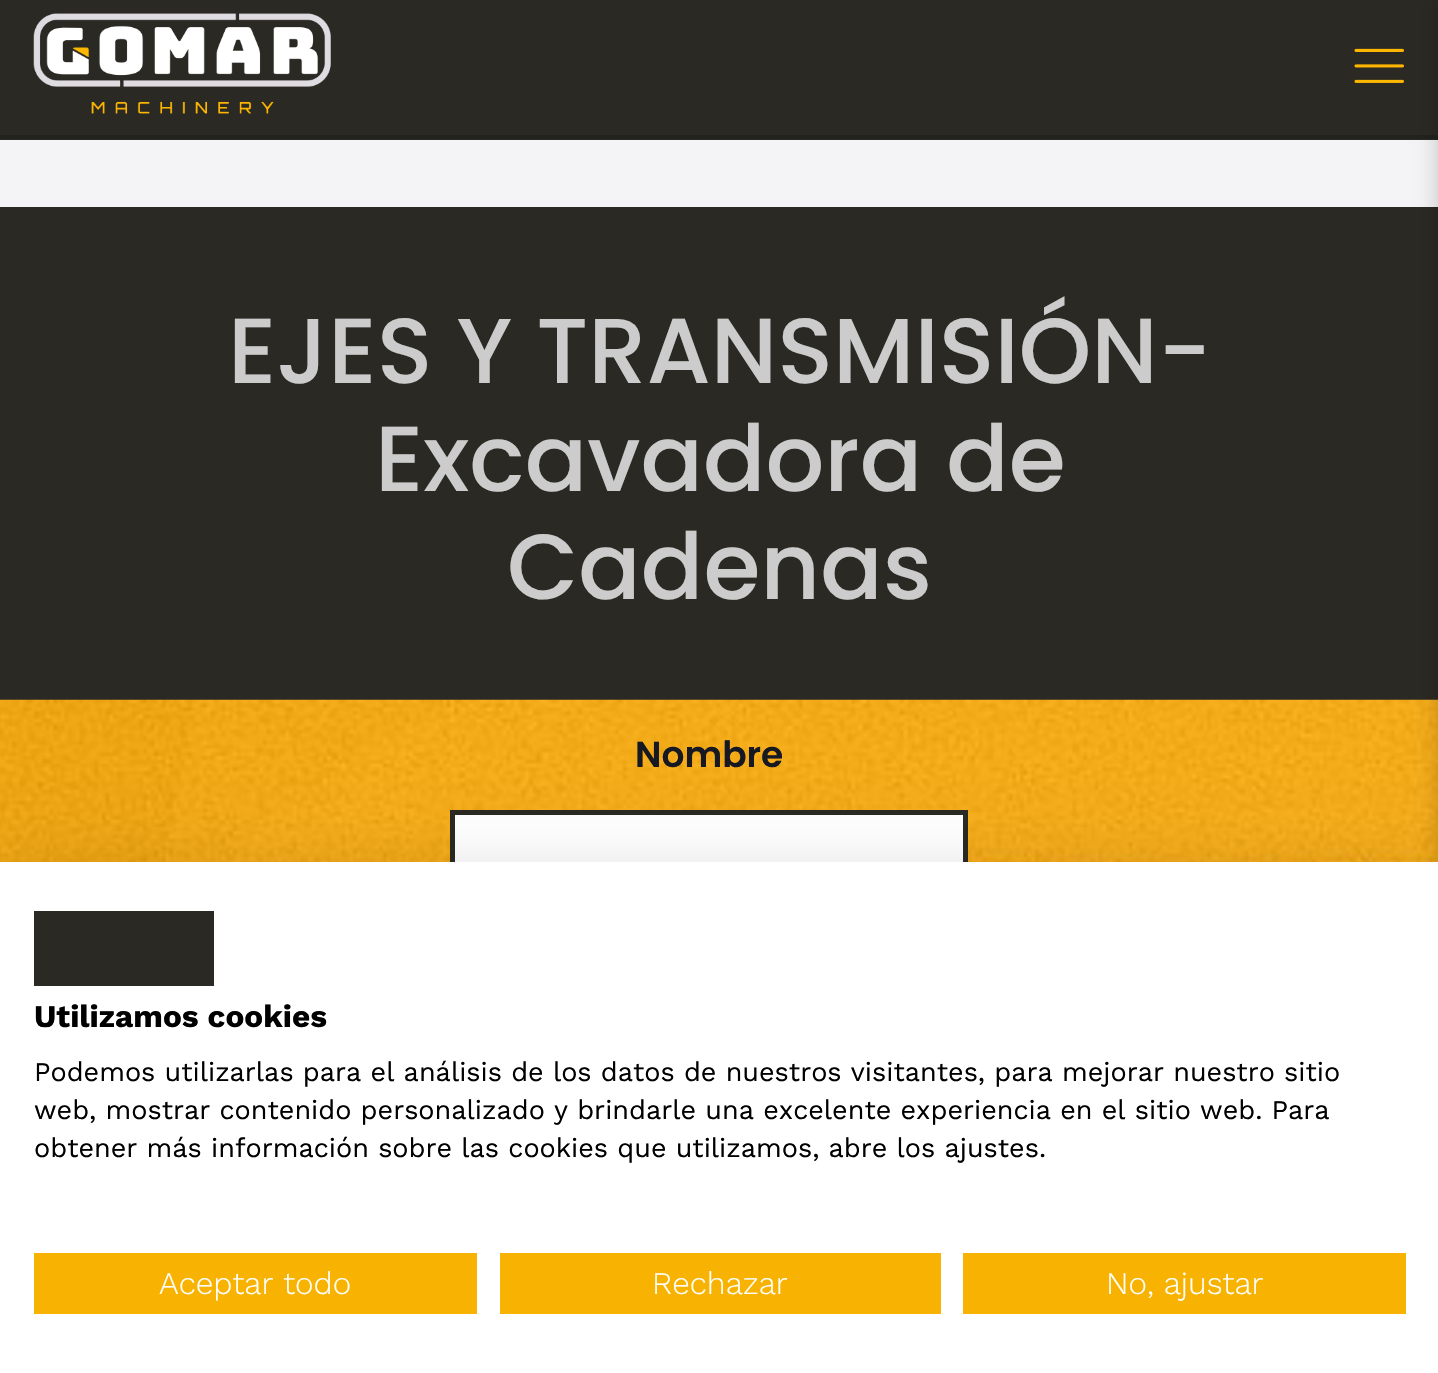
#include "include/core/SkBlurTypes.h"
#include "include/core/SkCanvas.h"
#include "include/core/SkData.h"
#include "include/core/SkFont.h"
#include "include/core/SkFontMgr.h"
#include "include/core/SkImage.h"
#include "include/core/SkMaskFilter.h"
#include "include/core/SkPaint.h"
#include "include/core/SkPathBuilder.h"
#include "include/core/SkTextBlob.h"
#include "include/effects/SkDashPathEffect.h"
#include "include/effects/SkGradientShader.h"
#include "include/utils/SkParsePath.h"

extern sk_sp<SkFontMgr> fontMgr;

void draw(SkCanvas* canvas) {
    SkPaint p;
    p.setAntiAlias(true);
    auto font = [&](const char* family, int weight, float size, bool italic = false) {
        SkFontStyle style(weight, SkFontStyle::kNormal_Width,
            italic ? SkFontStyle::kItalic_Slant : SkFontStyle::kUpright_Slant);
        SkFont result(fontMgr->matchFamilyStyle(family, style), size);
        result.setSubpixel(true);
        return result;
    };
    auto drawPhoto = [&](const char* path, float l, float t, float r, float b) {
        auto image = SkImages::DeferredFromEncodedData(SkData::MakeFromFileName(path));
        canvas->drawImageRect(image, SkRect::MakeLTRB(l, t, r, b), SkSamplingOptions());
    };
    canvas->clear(0xFFF4F3F5);
    p.setColor(0xFF2B2923);
    canvas->drawRect(SkRect::MakeLTRB(0, 0, 1438, 140), p);
    p.setColor(0xFF20231E);
    canvas->drawRect(SkRect::MakeLTRB(0, 135, 1438, 139), p);
    drawPhoto("media/1.png", 33, 13, 331, 114);
    drawPhoto("media/2.png", 1354, 48, 1404, 83);
    p.setColor(0xFF2B2923);
    canvas->drawRect(SkRect::MakeLTRB(0, 207, 1438, 700), p);
    auto font1 = font("Poppins", 500, 92.25f);
    p.setColor(0xFFCCCCCC);
    {
        const struct { const char* s; float x, y; } items[] = {
            {"EJES Y TRANSMISIÓN-", 228, 383},
            {"Excavadora de", 375, 491},
            {"Cadenas", 507, 599},
        };
        for (auto [s, x, y] : items) {
            canvas->drawString(s, x, y, font1, p);
        }
    }
    drawPhoto("media/3.png", 0, 699, 1438, 862);
    auto font2 = font("Poppins", 600, 36);
    p.setColor(0xFF161922);
    canvas->drawString("Nombre", 635, 767, font2, p);
    p.setColor(0xFFFFFFFF);
    canvas->drawRect(SkRect::MakeLTRB(455, 815, 963, 862), p);
    p.setStyle(SkPaint::kStroke_Style);
    p.setStrokeWidth(5);
    p.setColor(0xFF2B2923);
    canvas->drawRect(SkRect::MakeLTRB(452.5f, 812.5f, 965.5f, 902.5f), p);
    p.setStyle(SkPaint::kFill_Style);
    p.setColor(0x33000000);
    p.setMaskFilter(SkMaskFilter::MakeBlur(kNormal_SkBlurStyle, 11));
    canvas->drawRect(SkRect::MakeLTRB(1438, -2, 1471, 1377), p);
    p.setMaskFilter(nullptr);
    p.setColor(0x1A000000);
    p.setMaskFilter(SkMaskFilter::MakeBlur(kNormal_SkBlurStyle, 27));
    canvas->drawRect(SkRect::MakeLTRB(0, 862, 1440, 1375), p);
    p.setMaskFilter(nullptr);
    p.setColor(0xFFFFFFFF);
    canvas->drawRect(SkRect::MakeLTRB(0, 862, 1438, 1373), p);
    p.setColor(0xFF2B2923);
    canvas->drawRect(SkRect::MakeLTRB(34, 911, 214, 986), p);
    auto font3 = font("Work Sans", 700, 31.5f);
    p.setColor(0xFF000000);
    canvas->drawString("Utilizamos cookies", 34, 1027, font3, p);
    auto font4 = font("Work Sans", 400, 27);
    {
        const struct { const char* s; float x, y; } items[] = {
            {"Podemos utilizarlas para el análisis de los datos de nuestros visitantes, para mejorar nuestro sitio", 34, 1081},
            {"web, mostrar contenido personalizado y brindarle una excelente experiencia en el sitio web. Para", 34, 1119},
            {"obtener más información sobre las cookies que utilizamos, abre los ajustes.", 34, 1157},
        };
        for (auto [s, x, y] : items) {
            canvas->drawString(s, x, y, font4, p);
        }
    }
    p.setColor(0xFFF8B302);
    canvas->drawRect(SkRect::MakeLTRB(34, 1253, 477, 1314), p);
    auto font5 = font("Work Sans", 300, 31.5f);
    p.setColor(0xFFFFFFFF);
    canvas->drawString("Aceptar todo", 159, 1294, font5, p);
    p.setColor(0xFFF8B302);
    canvas->drawRect(SkRect::MakeLTRB(500, 1253, 941, 1314), p);
    p.setColor(0xFFFFFFFF);
    canvas->drawString("Rechazar", 652, 1294, font5, p);
    p.setColor(0xFFF8B302);
    canvas->drawRect(SkRect::MakeLTRB(963, 1253, 1406, 1314), p);
    p.setColor(0xFFFFFFFF);
    canvas->drawString("No, ajustar", 1106, 1294, font5, p);
}
